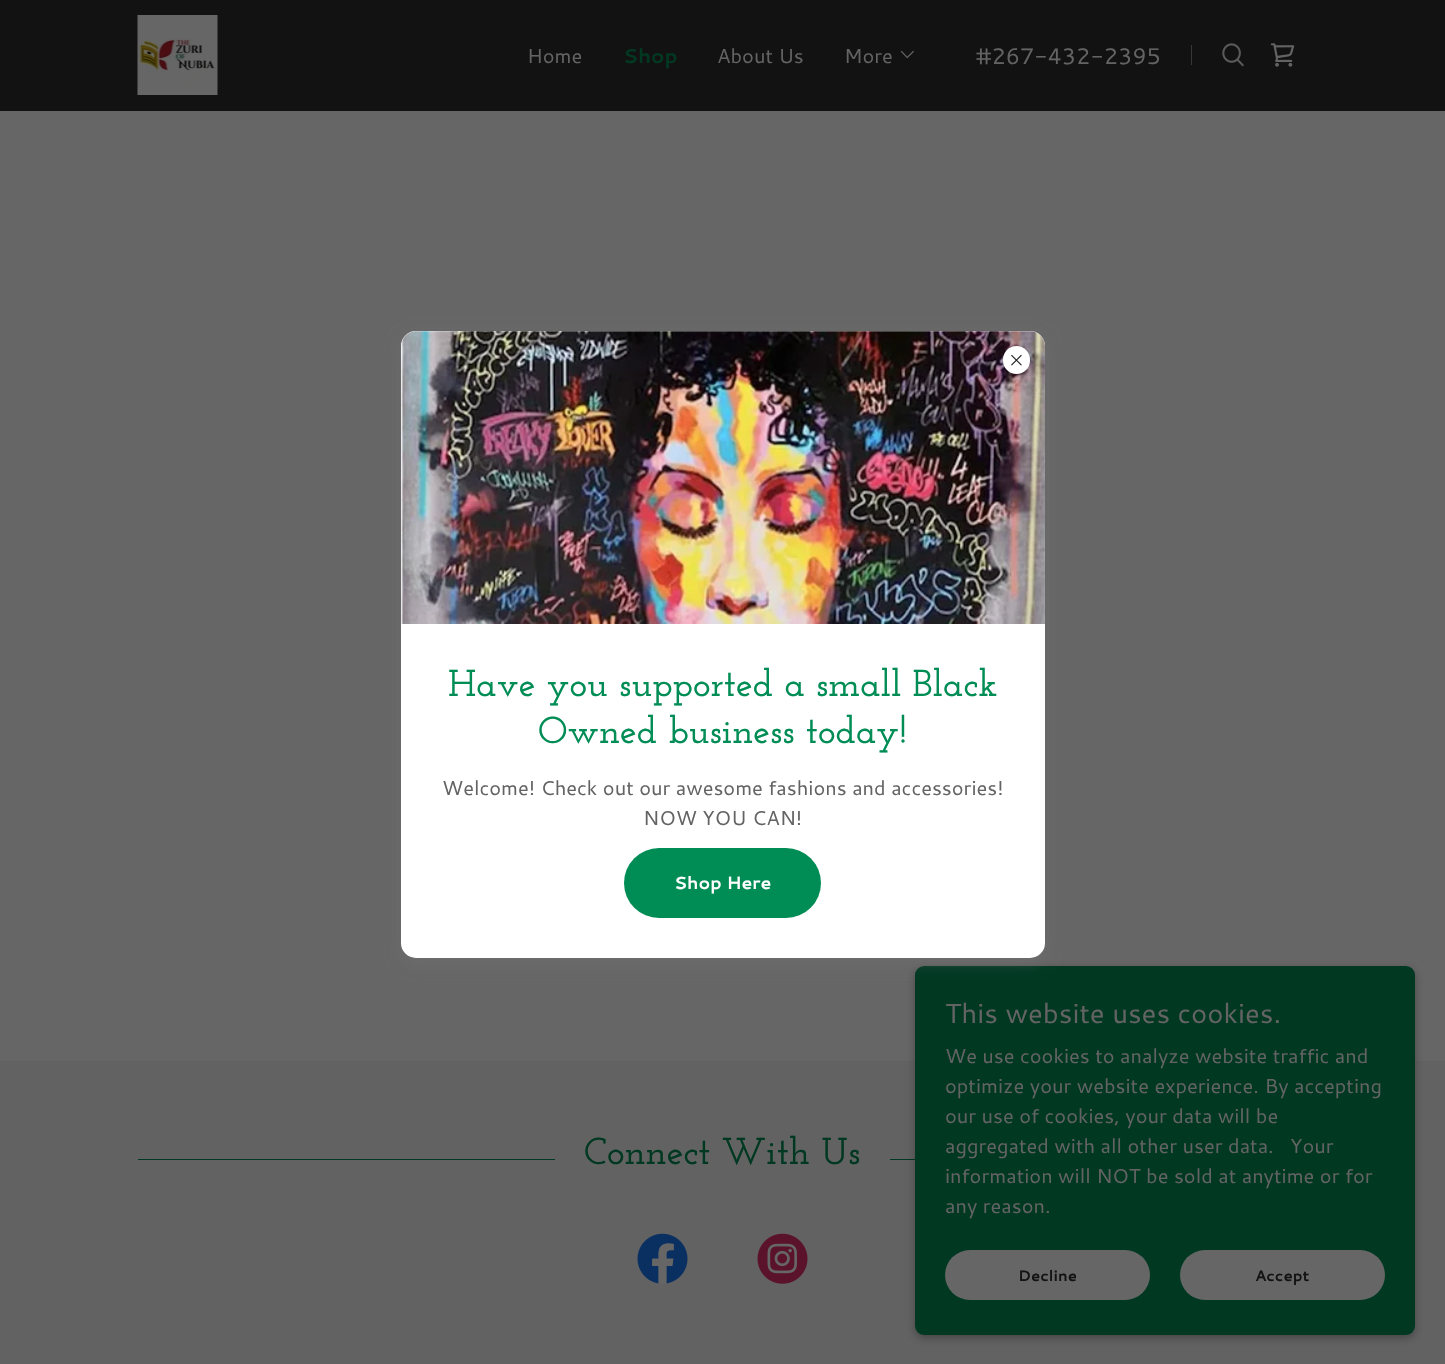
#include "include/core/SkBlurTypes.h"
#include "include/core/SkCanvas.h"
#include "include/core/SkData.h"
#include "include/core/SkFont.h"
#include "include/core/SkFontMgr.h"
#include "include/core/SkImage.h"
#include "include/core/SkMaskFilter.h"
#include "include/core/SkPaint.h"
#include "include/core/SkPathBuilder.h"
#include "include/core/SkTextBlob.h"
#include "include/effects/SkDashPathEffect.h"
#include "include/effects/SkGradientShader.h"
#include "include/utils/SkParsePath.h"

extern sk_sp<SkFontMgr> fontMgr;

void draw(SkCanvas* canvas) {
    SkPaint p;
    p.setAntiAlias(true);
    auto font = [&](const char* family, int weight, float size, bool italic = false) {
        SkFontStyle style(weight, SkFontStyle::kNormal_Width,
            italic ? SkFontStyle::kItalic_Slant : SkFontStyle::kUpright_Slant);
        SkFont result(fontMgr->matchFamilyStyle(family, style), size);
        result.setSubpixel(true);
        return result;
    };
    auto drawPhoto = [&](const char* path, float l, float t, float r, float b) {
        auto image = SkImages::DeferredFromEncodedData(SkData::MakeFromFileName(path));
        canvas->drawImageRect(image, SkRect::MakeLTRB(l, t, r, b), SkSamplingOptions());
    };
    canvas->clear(0xFF666666);
    p.setColor(0xFF121212);
    canvas->drawRect(SkRect::MakeLTRB(0, 0, 1445, 110), p);
    drawPhoto("media/1.png", 137, 15, 218, 95);
    auto font1 = font("Cantarell", 400, 20);
    p.setColor(0xFF636363);
    canvas->drawString("Home", 527, 63, font1, p);
    auto font2 = font("Cantarell", 700, 20);
    p.setColor(0xFF003822);
    canvas->drawString("Shop", 623, 63, font2, p);
    p.setColor(0xFF636363);
    canvas->drawString("About Us", 717, 63, font1, p);
    canvas->drawString("More", 844, 63, font1, p);
    drawPhoto("media/2.png", 900, 50, 914, 59);
    auto font3 = font("Cantarell", 400, 22.5f);
    canvas->drawString("#267-432-2395", 976, 64, font3, p);
    p.setColor(0xFF373737);
    canvas->drawRect(SkRect::MakeLTRB(1191, 45, 1192, 65), p);
    drawPhoto("media/3.png", 1222, 43, 1244, 67);
    drawPhoto("media/4.png", 1270, 43, 1295, 67);
    {
        const struct { float l, t, r, b; SkColor color; } items[] = {
            {0, 110, 1445, 111, 0xFF111111},
            {0, 1061, 1445, 1364, 0xFF626262},
            {890, 1159, 915, 1160, 0xFF003822},
        };
        for (auto [l, t, r, b, color] : items) {
            p.setColor(color);
            canvas->drawRect(SkRect::MakeLTRB(l, t, r, b), p);
        }
    }
    p.setColor(0x4D000000);
    p.setMaskFilter(SkMaskFilter::MakeBlur(kNormal_SkBlurStyle, 4));
    canvas->drawRoundRect(SkRect::MakeLTRB(915, 969, 1415, 1338), 9, 9, p);
    p.setMaskFilter(nullptr);
    p.setColor(0xFF003822);
    canvas->drawRoundRect(SkRect::MakeLTRB(915, 966, 1415, 1335), 9, 9, p);
    p.setColor(0x66757575);
    p.setMaskFilter(SkMaskFilter::MakeBlur(kNormal_SkBlurStyle, 7.5f));
    canvas->drawRoundRect(SkRect::MakeLTRB(401, 336, 1045, 963), 15, 15, p);
    p.setMaskFilter(nullptr);
    p.setColor(0xFFFFFFFF);
    canvas->drawRoundRect(SkRect::MakeLTRB(401, 331, 1045, 958), 15, 15, p);
    drawPhoto("media/6.png", 401, 331, 1045, 624);
    canvas->drawRoundRect(SkRect::MakeLTRB(1003, 346, 1030, 374), 13.5f, 13.5f, p);
    drawPhoto("media/5.png", 1011, 354, 1022, 366);
    auto font4 = font("Josefin Slab", 100, 37.5f);
    p.setColor(0xFF008D55);
    canvas->drawString("Have you supported a small Black", 448, 696, font4, p);
    canvas->drawString("Owned business today!", 538, 743, font4, p);
    p.setColor(0xFF636363);
    canvas->drawString("Welcome! Check out our awesome fashions and accessories!", 442, 795, font1, p);
    canvas->drawString("NOW YOU CAN!", 643, 825, font1, p);
    p.setColor(0xFF008D55);
    canvas->drawRoundRect(SkRect::MakeLTRB(624, 848, 821, 918), 35, 35, p);
    auto font5 = font("Cantarell", 700, 17.5f);
    p.setColor(0xFFFFFFFF);
    canvas->drawString("Shop Here", 674, 889, font5, p);
    p.setColor(0xFF003822);
    canvas->drawRect(SkRect::MakeLTRB(138, 1159, 555, 1160), p);
    canvas->drawString("Connect With Us", 584, 1164, font4, p);
    drawPhoto("media/7.png", 637, 1233, 688, 1284);
    drawPhoto("media/8.png", 757, 1233, 808, 1284);
    auto font6 = font("Cantarell", 400, 27.5f);
    p.setColor(0xFF636363);
    canvas->drawString("This website uses cookies.", 945, 1023, font6, p);
    {
        const struct { const char* s; float x, y; } items[] = {
            {"We use cookies to analyze website traffic and", 945, 1063},
            {"optimize your website experience. By accepting", 945, 1093},
            {"our use of cookies, your data will be", 945, 1123},
            {"aggregated with all other user data.   Your", 945, 1153},
            {"information will NOT be sold at anytime or for", 945, 1183},
            {"any reason.", 945, 1213},
        };
        for (auto [s, x, y] : items) {
            canvas->drawString(s, x, y, font1, p);
        }
    }
    p.setColor(0xFF666666);
    canvas->drawRoundRect(SkRect::MakeLTRB(945, 1250, 1150, 1300), 25, 25, p);
    auto font7 = font("Cantarell", 700, 15);
    p.setColor(0xFF131313);
    canvas->drawString("Decline", 1018, 1281, font7, p);
    p.setColor(0xFF666666);
    canvas->drawRoundRect(SkRect::MakeLTRB(1180, 1250, 1385, 1300), 25, 25, p);
    p.setColor(0xFF131313);
    canvas->drawString("Accept", 1255, 1281, font7, p);
}
